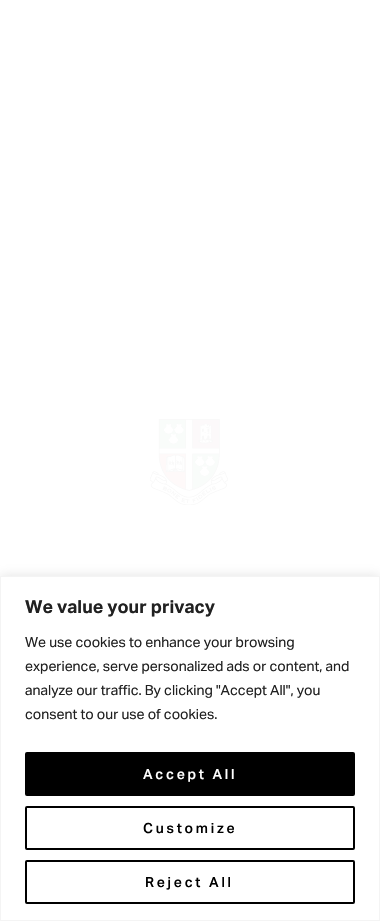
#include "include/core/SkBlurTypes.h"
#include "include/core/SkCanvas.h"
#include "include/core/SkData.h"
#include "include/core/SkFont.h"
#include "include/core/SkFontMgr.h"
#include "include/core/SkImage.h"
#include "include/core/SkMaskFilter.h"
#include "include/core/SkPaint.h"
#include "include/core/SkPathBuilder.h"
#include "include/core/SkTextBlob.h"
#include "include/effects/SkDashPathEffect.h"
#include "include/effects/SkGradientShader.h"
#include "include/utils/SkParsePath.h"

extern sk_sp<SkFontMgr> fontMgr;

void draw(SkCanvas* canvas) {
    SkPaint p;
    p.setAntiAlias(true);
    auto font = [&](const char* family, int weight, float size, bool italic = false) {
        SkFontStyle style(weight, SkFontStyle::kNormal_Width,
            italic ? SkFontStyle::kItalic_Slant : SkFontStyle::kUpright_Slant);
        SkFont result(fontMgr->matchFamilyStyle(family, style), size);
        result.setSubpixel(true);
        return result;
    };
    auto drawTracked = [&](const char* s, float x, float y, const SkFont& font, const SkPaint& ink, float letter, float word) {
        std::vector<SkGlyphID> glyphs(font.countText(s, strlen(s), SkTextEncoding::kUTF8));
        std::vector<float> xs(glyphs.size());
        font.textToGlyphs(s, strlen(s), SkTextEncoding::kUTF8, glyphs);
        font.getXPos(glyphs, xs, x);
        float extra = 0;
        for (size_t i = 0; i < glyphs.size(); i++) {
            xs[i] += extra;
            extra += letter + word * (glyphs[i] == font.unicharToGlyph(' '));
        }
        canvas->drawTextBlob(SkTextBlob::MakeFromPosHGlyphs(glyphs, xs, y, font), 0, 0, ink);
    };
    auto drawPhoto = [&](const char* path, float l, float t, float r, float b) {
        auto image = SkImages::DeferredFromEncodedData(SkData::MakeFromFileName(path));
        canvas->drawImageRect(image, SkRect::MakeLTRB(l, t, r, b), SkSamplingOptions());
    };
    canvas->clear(0xFFFFFFFF);
    drawPhoto("media/1.png", 150, 419, 228, 505);
    p.setColor(0x4DACABAB);
    p.setMaskFilter(SkMaskFilter::MakeBlur(kNormal_SkBlurStyle, 5));
    canvas->drawRect(SkRect::MakeLTRB(0, 575, 380, 920), p);
    p.setMaskFilter(nullptr);
    p.setColor(0xFFFFFFFF);
    canvas->drawRect(SkRect::MakeLTRB(0.5f, 576.5f, 379.5f, 920.5f), p);
    p.setStyle(SkPaint::kStroke_Style);
    p.setStrokeWidth(1);
    p.setColor(0xFFF4F4F4);
    canvas->drawRect(SkRect::MakeLTRB(0.5f, 576.5f, 379.5f, 920.5f), p);
    auto font1 = font("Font", 700, 18);
    p.setStyle(SkPaint::kFill_Style);
    p.setColor(0xFF212121);
    canvas->drawString("We value your privacy", 25, 613, font1, p);
    auto font2 = font("Font", 400, 14);
    {
        const struct { const char* s; float x, y; } items[] = {
            {"We use cookies to enhance your browsing", 25, 647},
            {"experience, serve personalized ads or content, and", 25, 671},
            {"analyze our traffic. By clicking \"Accept All\", you", 25, 695},
            {"consent to our use of cookies.", 25, 719},
        };
        for (auto [s, x, y] : items) {
            canvas->drawString(s, x, y, font2, p);
        }
    }
    p.setColor(0xFF000000);
    canvas->drawRoundRect(SkRect::MakeLTRB(26, 753, 354, 795), 1, 1, p);
    p.setStyle(SkPaint::kStroke_Style);
    p.setStrokeWidth(2);
    canvas->drawRoundRect(SkRect::MakeLTRB(26, 753, 354, 795), 1, 1, p);
    auto font3 = font("Font", 500, 14);
    p.setStyle(SkPaint::kFill_Style);
    p.setColor(0xFFFFFFFF);
    drawTracked("Accept All", 143, 779, font3, p, 2.75f, 0);
    p.setStyle(SkPaint::kStroke_Style);
    p.setColor(0xFF000000);
    canvas->drawRoundRect(SkRect::MakeLTRB(26, 807, 354, 849), 1, 1, p);
    p.setStyle(SkPaint::kFill_Style);
    drawTracked("Customize", 143, 833, font3, p, 2.75f, 0);
    p.setStyle(SkPaint::kStroke_Style);
    canvas->drawRoundRect(SkRect::MakeLTRB(26, 861, 354, 903), 1, 1, p);
    p.setStyle(SkPaint::kFill_Style);
    drawTracked("Reject All", 145, 887, font3, p, 2.75f, 0);
}
